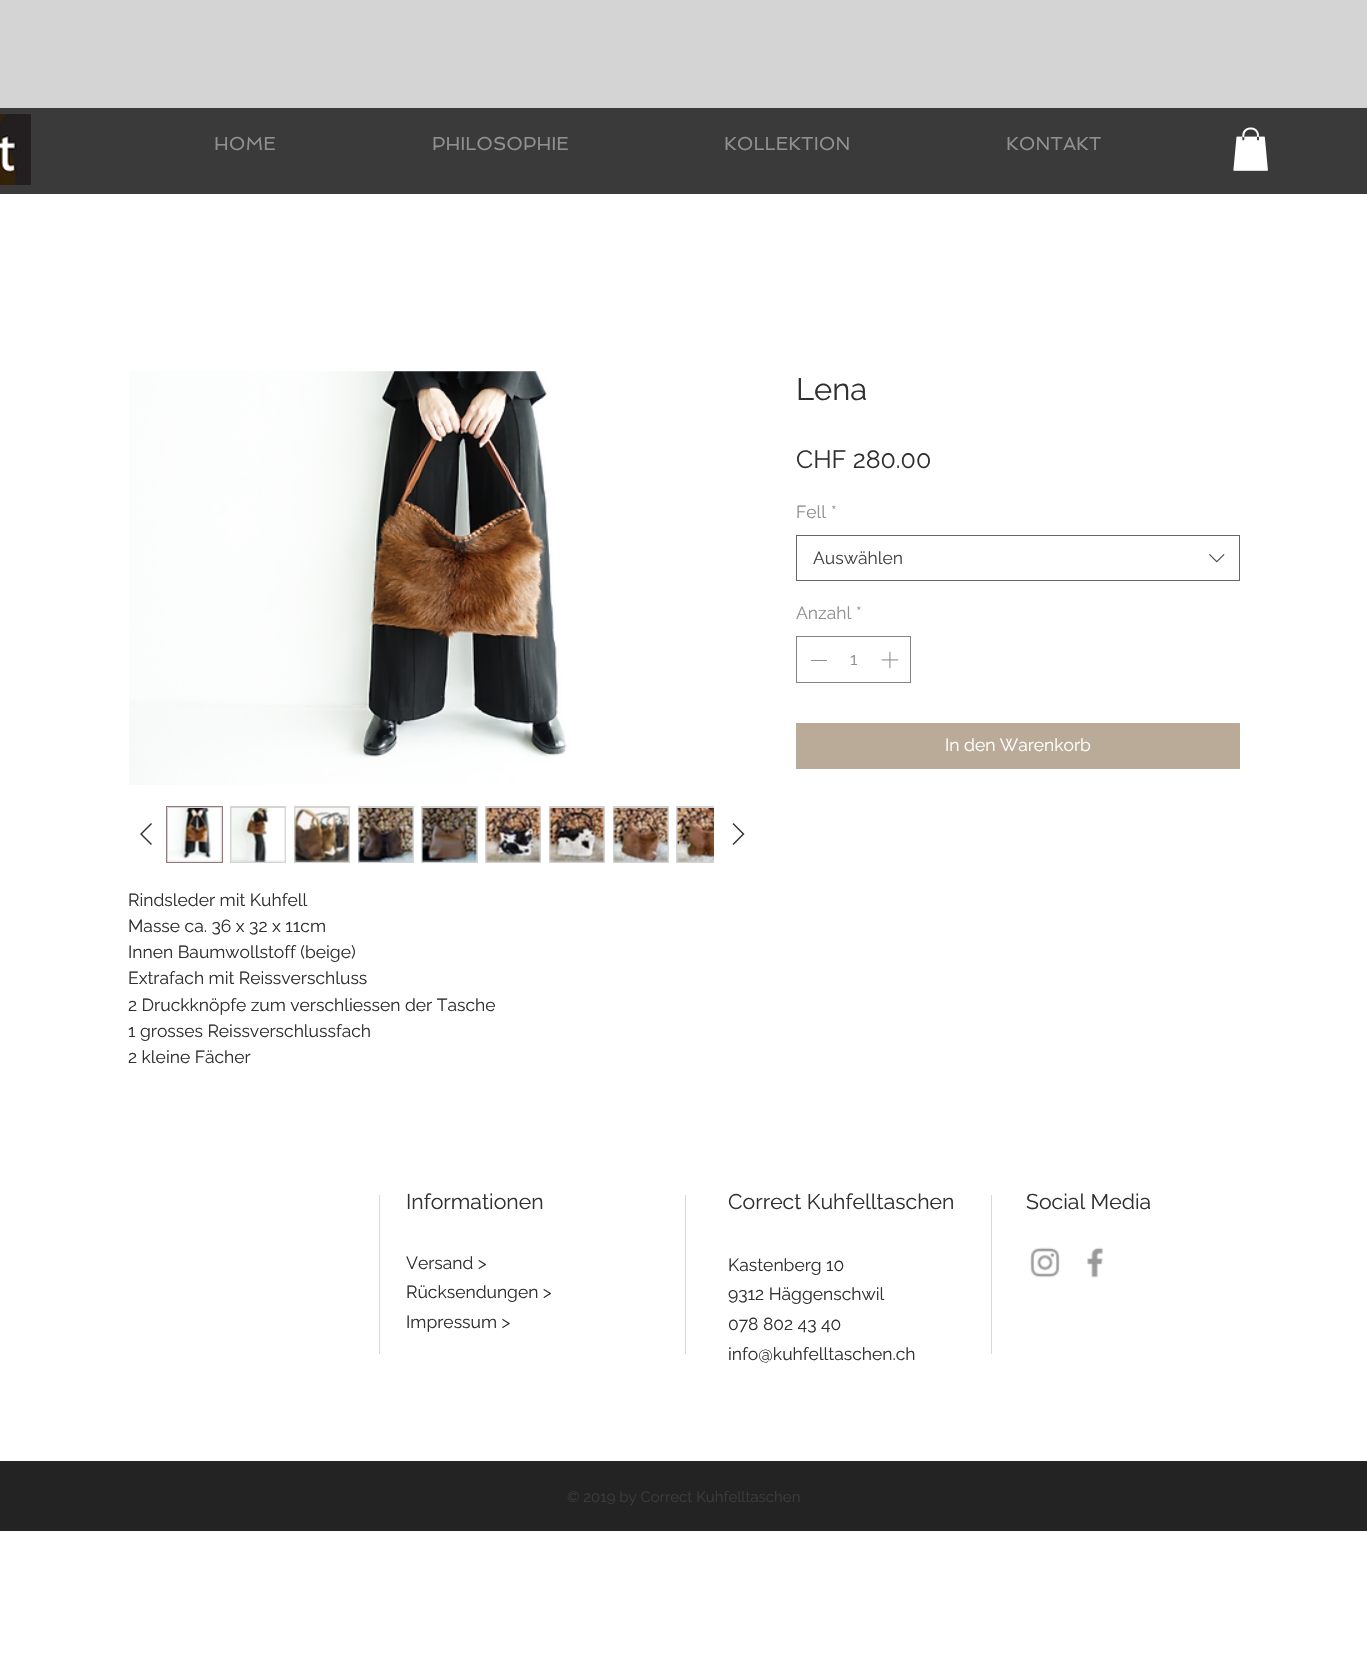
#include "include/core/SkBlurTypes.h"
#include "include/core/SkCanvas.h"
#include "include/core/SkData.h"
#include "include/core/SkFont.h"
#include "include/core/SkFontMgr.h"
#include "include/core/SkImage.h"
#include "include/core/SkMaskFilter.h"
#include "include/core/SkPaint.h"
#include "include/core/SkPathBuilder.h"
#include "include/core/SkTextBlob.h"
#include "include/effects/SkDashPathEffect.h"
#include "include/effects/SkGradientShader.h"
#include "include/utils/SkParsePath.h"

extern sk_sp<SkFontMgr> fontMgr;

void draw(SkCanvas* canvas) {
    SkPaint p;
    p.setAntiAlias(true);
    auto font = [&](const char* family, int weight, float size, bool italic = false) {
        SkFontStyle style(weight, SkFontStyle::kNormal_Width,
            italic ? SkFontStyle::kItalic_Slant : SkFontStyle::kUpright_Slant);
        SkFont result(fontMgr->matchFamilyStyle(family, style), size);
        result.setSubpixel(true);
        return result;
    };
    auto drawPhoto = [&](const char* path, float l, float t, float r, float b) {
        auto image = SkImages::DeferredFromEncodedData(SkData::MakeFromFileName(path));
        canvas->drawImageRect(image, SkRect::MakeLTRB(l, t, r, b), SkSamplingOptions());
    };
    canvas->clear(0xFFFFFFFF);
    p.setColor(0xFFD4D4D4);
    canvas->drawRect(SkRect::MakeLTRB(0, 0, 1367, 108), p);
    p.setColor(0xFF3B3A3A);
    canvas->drawRect(SkRect::MakeLTRB(0, 108, 1367, 194), p);
    drawPhoto("media/1.png", 0, 114, 31, 185);
    auto font1 = font("Spinnaker", 400, 18.75f);
    p.setColor(0xFF909090);
    {
        const struct { const char* s; float x, y; } items[] = {
            {"HOME", 214, 150},
            {"PHILOSOPHIE", 432, 150},
            {"KOLLEKTION", 724, 150},
            {"KONTAKT", 1006, 150},
        };
        for (auto [s, x, y] : items) {
            canvas->drawString(s, x, y, font1, p);
        }
    }
    drawPhoto("media/2.png", 1233, 127, 1268, 171);
    auto font2 = font("Raleway", 400, 31);
    p.setColor(0xFF303030);
    canvas->drawString("Lena", 796, 400, font2, p);
    auto font3 = font("Raleway", 400, 25);
    canvas->drawString("CHF 280.00", 796, 468, font3, p);
    auto font4 = font("Raleway", 400, 17.5f);
    p.setColor(0xFF909090);
    canvas->drawString("Fell", 796, 518, font4, p);
    canvas->drawString("*", 831, 518, font4, p);
    p.setStyle(SkPaint::kStroke_Style);
    p.setStrokeWidth(1);
    p.setColor(0xFF666666);
    canvas->drawRect(SkRect::MakeLTRB(796.5f, 535.5f, 1239.5f, 580.5f), p);
    p.setStyle(SkPaint::kFill_Style);
    p.setColor(0xFF444444);
    canvas->drawString("Auswählen", 813, 564, font4, p);
    drawPhoto("media/3.png", 1209, 554, 1225, 563);
    p.setColor(0xFF909090);
    canvas->drawString("Anzahl", 796, 619, font4, p);
    canvas->drawString("*", 856, 619, font4, p);
    p.setStyle(SkPaint::kStroke_Style);
    p.setColor(0xFF838383);
    canvas->drawRect(SkRect::MakeLTRB(796.5f, 636.5f, 910.5f, 682.5f), p);
    p.setStyle(SkPaint::kFill_Style);
    p.setColor(0xFF909090);
    canvas->drawRect(SkRect::MakeLTRB(811, 660, 827, 661), p);
    canvas->drawString("1", 850, 665, font4, p);
    drawPhoto("media/4.png", 881, 651, 899, 669);
    p.setColor(0xFFB9AB98);
    canvas->drawRect(SkRect::MakeLTRB(796, 723, 1240, 769), p);
    p.setColor(0xFFFFFFFF);
    canvas->drawString("In den Warenkorb", 945, 751, font4, p);
    drawPhoto("media/5.png", 129, 371, 567, 785);
    p.setColor(0xFF303030);
    canvas->drawPath(SkPathBuilder(SkPathFillType::kEvenOdd).moveTo(151, 823).lineTo(152, 824).lineTo(142, 834).lineTo(152, 844).lineTo(151, 845).lineTo(140, 834).close().detach(), p);
    p.setColor(0xFFD4D4D4);
    canvas->drawRect(SkRect::MakeLTRB(166.5f, 806.5f, 222.5f, 862.5f), p);
    p.setStyle(SkPaint::kStroke_Style);
    p.setColor(0xFF93797A);
    canvas->drawRect(SkRect::MakeLTRB(166.5f, 806.5f, 222.5f, 862.5f), p);
    drawPhoto("media/6.png", 168, 808, 222, 862);
    p.setStyle(SkPaint::kFill_Style);
    p.setColor(0xFFD4D4D4);
    canvas->drawRect(SkRect::MakeLTRB(230, 806, 286, 863), p);
    drawPhoto("media/7.png", 231, 808, 286, 862);
    canvas->drawRect(SkRect::MakeLTRB(294, 806, 350, 863), p);
    drawPhoto("media/8.png", 294, 808, 350, 862);
    canvas->drawRect(SkRect::MakeLTRB(358, 806, 414, 863), p);
    drawPhoto("media/9.png", 358, 808, 413, 862);
    canvas->drawRect(SkRect::MakeLTRB(421, 806, 478, 863), p);
    drawPhoto("media/10.png", 422, 808, 477, 862);
    canvas->drawRect(SkRect::MakeLTRB(485, 806, 541, 863), p);
    drawPhoto("media/11.png", 485, 808, 541, 862);
    canvas->drawRect(SkRect::MakeLTRB(549, 806, 605, 863), p);
    drawPhoto("media/12.png", 549, 808, 605, 862);
    canvas->drawRect(SkRect::MakeLTRB(613, 806, 669, 863), p);
    drawPhoto("media/13.png", 613, 808, 668, 862);
    canvas->drawRect(SkRect::MakeLTRB(676, 806, 714, 863), p);
    drawPhoto("media/14.png", 677, 808, 714, 862);
    p.setColor(0xFF303030);
    canvas->drawPath(SkPathBuilder(SkPathFillType::kEvenOdd).moveTo(733.5f, 823).lineTo(744.5f, 834).lineTo(733.5f, 845).lineTo(732.5f, 844).lineTo(742.5f, 834).lineTo(732.5f, 824).close().detach(), p);
    {
        const struct { const char* s; float x, y; } items[] = {
            {"Rindsleder mit Kuhfell", 128, 906},
            {"Masse ca. 36 x 32 x 11cm", 128, 932},
            {"Innen Baumwollstoff (beige)", 128, 958},
            {"Extrafach mit Reissverschluss", 128, 984},
            {"2 Druckknöpfe zum verschliessen der Tasche", 128, 1011},
            {"1 grosses Reissverschlussfach", 128, 1037},
            {"2 kleine Fächer", 128, 1063},
        };
        for (auto [s, x, y] : items) {
            canvas->drawString(s, x, y, font4, p);
        }
    }
    p.setColor(0xFFD8D8D8);
    canvas->drawRect(SkRect::MakeLTRB(379, 1195, 380, 1354), p);
    auto font5 = font("Raleway", 400, 21.25f);
    p.setColor(0xFF303030);
    canvas->drawString("Informationen", 406, 1209, font5, p);
    {
        const struct { const char* s; float x, y; } items[] = {
            {"Versand >", 406, 1269},
            {"Rücksendungen >", 406, 1298},
            {"Impressum >", 406, 1328},
        };
        for (auto [s, x, y] : items) {
            canvas->drawString(s, x, y, font4, p);
        }
    }
    p.setColor(0xFFD8D8D8);
    canvas->drawRect(SkRect::MakeLTRB(685, 1195, 686, 1354), p);
    p.setColor(0xFF303030);
    canvas->drawString("Correct Kuhfelltaschen", 728, 1209, font5, p);
    {
        const struct { const char* s; float x, y; } items[] = {
            {"Kastenberg 10", 728, 1271},
            {"9312 Häggenschwil", 728, 1300},
            {"078 802 43 40", 728, 1330},
            {"info@kuhfelltaschen.ch", 728, 1360},
        };
        for (auto [s, x, y] : items) {
            canvas->drawString(s, x, y, font4, p);
        }
    }
    p.setColor(0xFFD8D8D8);
    canvas->drawRect(SkRect::MakeLTRB(991, 1195, 992, 1354), p);
    p.setColor(0xFF303030);
    canvas->drawString("Social Media", 1026, 1209, font5, p);
    drawPhoto("media/15.png", 1030, 1247, 1060, 1278);
    drawPhoto("media/16.png", 1087, 1247, 1103, 1278);
    p.setColor(0xFF242323);
    canvas->drawRect(SkRect::MakeLTRB(0, 1461, 1367, 1531), p);
    auto font6 = font("Raleway", 400, 15);
    p.setColor(0xFF3B3B3B);
    canvas->drawString("© 2019 by Correct Kuhfelltaschen", 567, 1502, font6, p);
}
